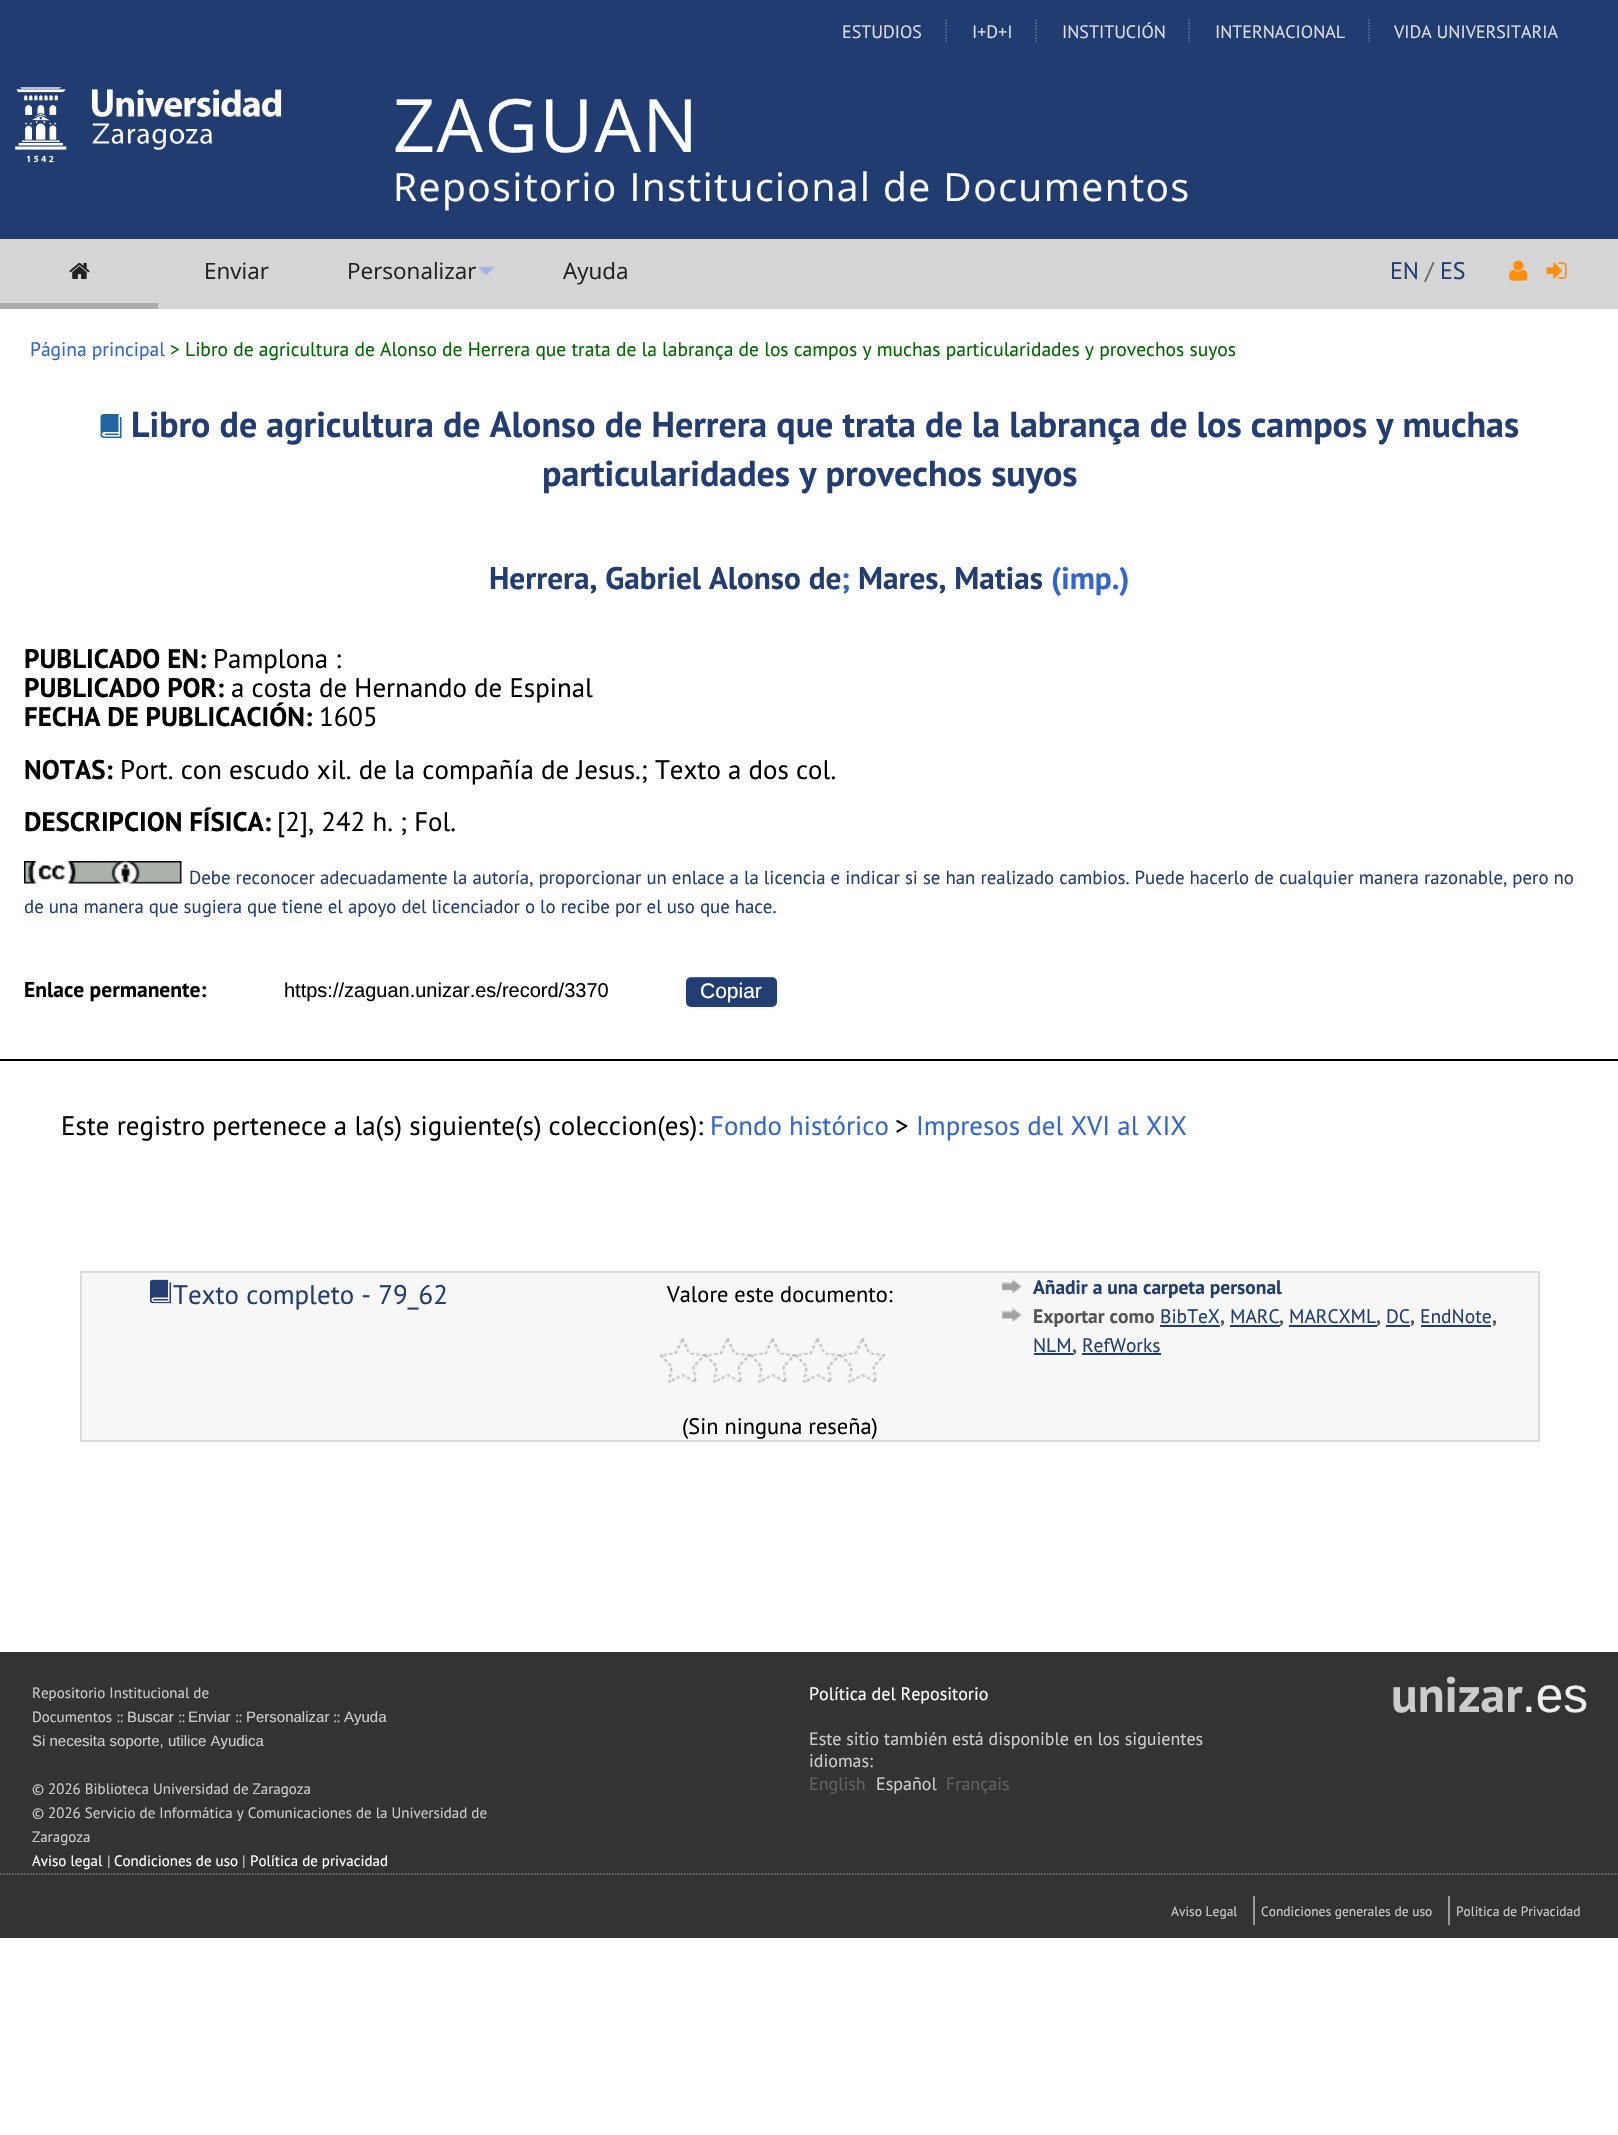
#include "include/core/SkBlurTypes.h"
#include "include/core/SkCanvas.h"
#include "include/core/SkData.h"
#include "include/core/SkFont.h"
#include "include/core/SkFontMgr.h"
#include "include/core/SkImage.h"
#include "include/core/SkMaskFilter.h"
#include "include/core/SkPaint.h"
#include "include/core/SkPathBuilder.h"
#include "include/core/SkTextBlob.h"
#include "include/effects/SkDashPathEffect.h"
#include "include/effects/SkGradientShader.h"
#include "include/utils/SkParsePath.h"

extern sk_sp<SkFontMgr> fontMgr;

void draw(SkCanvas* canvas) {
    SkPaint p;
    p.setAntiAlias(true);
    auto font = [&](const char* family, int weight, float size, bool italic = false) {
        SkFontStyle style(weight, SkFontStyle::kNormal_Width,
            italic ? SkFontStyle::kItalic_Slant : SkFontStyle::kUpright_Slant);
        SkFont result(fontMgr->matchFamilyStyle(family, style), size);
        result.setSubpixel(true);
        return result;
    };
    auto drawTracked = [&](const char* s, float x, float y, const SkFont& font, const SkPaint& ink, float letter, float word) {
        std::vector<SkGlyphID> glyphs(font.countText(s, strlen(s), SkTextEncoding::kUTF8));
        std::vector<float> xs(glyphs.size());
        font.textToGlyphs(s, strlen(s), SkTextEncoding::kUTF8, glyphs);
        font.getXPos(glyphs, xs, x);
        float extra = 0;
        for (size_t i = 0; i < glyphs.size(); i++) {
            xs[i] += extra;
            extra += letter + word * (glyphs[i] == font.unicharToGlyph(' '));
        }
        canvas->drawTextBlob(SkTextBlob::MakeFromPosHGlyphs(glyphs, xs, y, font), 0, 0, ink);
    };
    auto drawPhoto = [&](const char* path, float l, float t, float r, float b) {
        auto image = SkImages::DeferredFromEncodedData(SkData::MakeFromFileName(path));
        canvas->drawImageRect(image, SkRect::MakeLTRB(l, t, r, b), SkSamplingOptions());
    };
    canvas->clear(0xFFFFFFFF);
    p.setColor(0xFF213C70);
    canvas->drawRect(SkRect::MakeLTRB(0, 0, 1618, 239), p);
    auto font1 = font("PT Sans", 400, 18);
    p.setColor(0xFFDDDDDD);
    canvas->drawString("ESTUDIOS", 842, 38, font1, p);
    p.setStyle(SkPaint::kStroke_Style);
    p.setStrokeWidth(1.5f);
    p.setColor(0xFF64779D);
    p.setPathEffect(SkDashPathEffect::Make({{1.5f, 1.5f}}, 0));
    canvas->drawPath(SkPathBuilder().moveTo(946, 19.5f).lineTo(946, 42).detach(), p);
    p.setPathEffect(nullptr);
    p.setStyle(SkPaint::kFill_Style);
    p.setColor(0xFFDDDDDD);
    canvas->drawString("I+D+I", 972, 38, font1, p);
    p.setStyle(SkPaint::kStroke_Style);
    p.setColor(0xFF64779D);
    p.setPathEffect(SkDashPathEffect::Make({{1.5f, 1.5f}}, 0));
    canvas->drawPath(SkPathBuilder().moveTo(1036, 19.5f).lineTo(1036, 42).detach(), p);
    p.setPathEffect(nullptr);
    p.setStyle(SkPaint::kFill_Style);
    p.setColor(0xFFDDDDDD);
    canvas->drawString("INSTITUCIÓN", 1062, 38, font1, p);
    p.setStyle(SkPaint::kStroke_Style);
    p.setColor(0xFF64779D);
    p.setPathEffect(SkDashPathEffect::Make({{1.5f, 1.5f}}, 0));
    canvas->drawPath(SkPathBuilder().moveTo(1189, 19.5f).lineTo(1189, 42).detach(), p);
    p.setPathEffect(nullptr);
    p.setStyle(SkPaint::kFill_Style);
    p.setColor(0xFFDDDDDD);
    canvas->drawString("INTERNACIONAL", 1215, 38, font1, p);
    p.setStyle(SkPaint::kStroke_Style);
    p.setColor(0xFF64779D);
    p.setPathEffect(SkDashPathEffect::Make({{1.5f, 1.5f}}, 0));
    canvas->drawPath(SkPathBuilder().moveTo(1369, 19.5f).lineTo(1369, 42).detach(), p);
    p.setPathEffect(nullptr);
    p.setStyle(SkPaint::kFill_Style);
    p.setColor(0xFFDDDDDD);
    canvas->drawString("VIDA UNIVERSITARIA", 1394, 38, font1, p);
    drawPhoto("media/1.png", 15, 87, 282, 163);
    auto font2 = font("Open Sans", 400, 73.5f);
    p.setColor(0xFFFFFFFF);
    drawTracked("ZAGUAN", 393, 152, font2, p, 1.5f, 0);
    auto font3 = font("Open Sans", 400, 39);
    drawTracked("Repositorio Institucional de Documentos", 393, 201, font3, p, 1.5f, 0);
    p.setColor(0xFFD5D5D5);
    canvas->drawRect(SkRect::MakeLTRB(0, 239, 1618, 309), p);
    p.setColor(0xFFADADAD);
    canvas->drawRect(SkRect::MakeLTRB(0, 303, 158, 309), p);
    drawPhoto("media/2.png", 69, 262, 90, 279);
    auto font4 = font("Open Sans", 400, 22.5f);
    p.setColor(0xFF222222);
    canvas->drawString("Enviar", 204, 279, font4, p);
    canvas->drawString("Personalizar", 347, 279, font4, p);
    drawPhoto("media/3.png", 478, 266, 494, 275);
    canvas->drawString("Ayuda", 563, 279, font4, p);
    auto font5 = font("PT Sans", 400, 24);
    p.setColor(0xFF223D72);
    canvas->drawString("EN", 1390, 279, font5, p);
    p.setColor(0xFF626262);
    canvas->drawString("/", 1425, 279, font5, p);
    p.setColor(0xFF223D72);
    canvas->drawString("ES", 1440, 279, font5, p);
    drawPhoto("media/4.png", 1509, 260, 1528, 281);
    drawPhoto("media/5.png", 1546, 262, 1567, 279);
    auto font6 = font("PT Sans", 400, 19.5f);
    p.setColor(0xFF3366CC);
    canvas->drawString("Página principal", 30, 356, font6, p);
    p.setColor(0xFF006600);
    canvas->drawString("> Libro de agricultura de Alonso de Herrera que trata de la labrança de los campos y muchas particularidades y provechos suyos", 170, 356, font6, p);
    drawPhoto("media/6.png", 100, 414, 122, 438);
    auto font7 = font("PT Sans", 700, 36);
    p.setColor(0xFF223D72);
    canvas->drawString("Libro de agricultura de Alonso de Herrera que trata de la labrança de los campos y muchas", 131, 437, font7, p);
    canvas->drawString("particularidades y provechos suyos", 542, 486, font7, p);
    auto font8 = font("PT Sans", 700, 31.25f);
    canvas->drawString("Herrera, Gabriel Alonso de", 489, 589, font8, p);
    p.setColor(0xFF3366CC);
    canvas->drawString(";", 841, 589, font8, p);
    p.setColor(0xFF223D72);
    canvas->drawString("Mares, Matias", 858, 589, font8, p);
    p.setColor(0xFF3366CC);
    canvas->drawString("(imp.)", 1051, 589, font8, p);
    auto font9 = font("PT Sans", 700, 26.9f);
    p.setColor(0xFF000000);
    canvas->drawString("PUBLICADO EN:", 24, 668, font9, p);
    auto font10 = font("PT Sans", 400, 26.9f);
    canvas->drawString("Pamplona :", 213, 668, font10, p);
    canvas->drawString("PUBLICADO POR:", 24, 697, font9, p);
    canvas->drawString("a costa de Hernando de Espinal", 231, 697, font10, p);
    canvas->drawString("FECHA DE PUBLICACIÓN:", 24, 726, font9, p);
    canvas->drawString("1605", 319, 726, font10, p);
    canvas->drawString("NOTAS:", 24, 779, font9, p);
    canvas->drawString("Port. con escudo xil. de la compañía de Jesus.; Texto a dos col.", 120, 779, font10, p);
    canvas->drawString("DESCRIPCION FÍSICA:", 24, 831, font9, p);
    canvas->drawString("[2], 242 h. ; Fol.", 277, 831, font10, p);
    drawPhoto("media/7.png", 24, 861, 182, 884);
    auto font11 = font("PT Sans", 400, 18.82f);
    p.setColor(0xFF223D72);
    canvas->drawString("Debe reconocer adecuadamente la autoría, proporcionar un enlace a la licencia e indicar si se han realizado cambios. Puede hacerlo de cualquier manera razonable, pero no", 189, 884, font11, p);
    canvas->drawString("de una manera que sugiera que tiene el apoyo del licenciador o lo recibe por el uso que hace.", 24, 913, font11, p);
    auto font12 = font("PT Sans", 700, 21.5f);
    p.setColor(0xFF000000);
    canvas->drawString("Enlace permanente:", 24, 997, font12, p);
    auto font13 = font("Liberation Sans", 400, 20);
    canvas->drawString("https://zaguan.unizar.es/record/3370", 284, 997, font13, p);
    p.setColor(0x0D000000);
    p.setMaskFilter(SkMaskFilter::MakeBlur(kNormal_SkBlurStyle, 1.5f));
    canvas->drawRoundRect(SkRect::MakeLTRB(686, 978, 777, 1008), 5, 5, p);
    p.setMaskFilter(nullptr);
    p.setColor(0xFF223D72);
    canvas->drawRoundRect(SkRect::MakeLTRB(686, 977, 777, 1007), 5, 5, p);
    p.setColor(0x33FFFFFF);
    canvas->drawPath(SkPathBuilder().moveTo(690, 978).lineTo(772, 978).cubicTo(775, 978, 777, 980, 777, 982).cubicTo(777, 979, 775, 977, 772, 977).lineTo(691, 977).cubicTo(688, 977, 686, 979, 686, 982).cubicTo(686, 980, 688, 978, 690, 978).close().detach(), p);
    auto font14 = font("Liberation Sans", 400, 21);
    p.setColor(0xFFFFFFFF);
    canvas->drawString("Copiar", 700, 998, font14, p);
    p.setColor(0xFF000000);
    canvas->drawRect(SkRect::MakeLTRB(0, 1059, 1618, 1061), p);
    canvas->drawString("Este registro pertenece a la(s) siguiente(s) coleccion(es):", 61, 1135, font10, p);
    p.setColor(0xFF3366CC);
    canvas->drawString("Fondo histórico", 710, 1135, font10, p);
    p.setColor(0xFF000000);
    canvas->drawString(">", 895, 1135, font10, p);
    p.setColor(0xFF3366CC);
    canvas->drawString("Impresos del XVI al XIX", 916, 1135, font10, p);
    {
        const struct { float l, t, r, b; SkColor color; } items[] = {
            {82, 1273, 1538, 1440, 0xFFF7F7F7},
            {80, 1271, 1539, 1273, 0xFFDDDDDD},
            {1538, 1271, 1540, 1442, 0xFFDDDDDD},
            {80, 1440, 1539, 1442, 0xFFDDDDDD},
            {80, 1271, 82, 1442, 0xFFDDDDDD},
        };
        for (auto [l, t, r, b, color] : items) {
            p.setColor(color);
            canvas->drawRect(SkRect::MakeLTRB(l, t, r, b), p);
        }
    }
    drawPhoto("media/8.png", 150, 1279, 171, 1304);
    p.setColor(0xFF223D72);
    canvas->drawString("Texto completo - 79_62", 173, 1304, font10, p);
    auto font15 = font("PT Sans", 400, 22.4f);
    p.setColor(0xFF000000);
    canvas->drawString("Valore este documento:", 667, 1302, font15, p);
    drawPhoto("media/9.png", 660, 1338, 705, 1383);
    drawPhoto("media/10.png", 705, 1338, 750, 1383);
    drawPhoto("media/11.png", 750, 1338, 795, 1383);
    drawPhoto("media/9.png", 795, 1338, 840, 1383);
    drawPhoto("media/9.png", 840, 1338, 885, 1383);
    canvas->drawString("(Sin ninguna reseña)", 682, 1434, font15, p);
    drawPhoto("media/12.png", 1001, 1279, 1022, 1294);
    auto font16 = font("PT Sans", 700, 19.5f);
    p.setColor(0xFF223D72);
    canvas->drawString("Añadir a una carpeta personal", 1033, 1294, font16, p);
    drawPhoto("media/13.png", 1001, 1307, 1022, 1323);
    p.setColor(0xFF555555);
    canvas->drawString("Exportar como", 1033, 1323, font16, p);
    p.setColor(0xFF223D72);
    canvas->drawString("BibTeX", 1160, 1323, font6, p);
    canvas->drawRect(SkRect::MakeLTRB(1160, 1325, 1220, 1327), p);
    p.setColor(0xFF555555);
    canvas->drawString(",", 1220, 1323, font16, p);
    p.setColor(0xFF223D72);
    canvas->drawString("MARC", 1230, 1323, font6, p);
    canvas->drawRect(SkRect::MakeLTRB(1230, 1325, 1280, 1327), p);
    p.setColor(0xFF555555);
    canvas->drawString(",", 1279, 1323, font16, p);
    p.setColor(0xFF223D72);
    canvas->drawString("MARCXML", 1289, 1323, font6, p);
    canvas->drawRect(SkRect::MakeLTRB(1289, 1325, 1377, 1327), p);
    p.setColor(0xFF555555);
    canvas->drawString(",", 1376, 1323, font16, p);
    p.setColor(0xFF223D72);
    canvas->drawString("DC", 1386, 1323, font6, p);
    canvas->drawRect(SkRect::MakeLTRB(1386, 1325, 1410, 1327), p);
    p.setColor(0xFF555555);
    canvas->drawString(",", 1410, 1323, font16, p);
    p.setColor(0xFF223D72);
    canvas->drawString("EndNote", 1420, 1323, font6, p);
    canvas->drawRect(SkRect::MakeLTRB(1421, 1325, 1491, 1327), p);
    p.setColor(0xFF555555);
    canvas->drawString(",", 1492, 1323, font16, p);
    p.setColor(0xFF223D72);
    canvas->drawString("NLM", 1033, 1352, font6, p);
    canvas->drawRect(SkRect::MakeLTRB(1034, 1353, 1073, 1355), p);
    p.setColor(0xFF555555);
    canvas->drawString(",", 1072, 1352, font16, p);
    p.setColor(0xFF223D72);
    canvas->drawString("RefWorks", 1082, 1352, font6, p);
    canvas->drawRect(SkRect::MakeLTRB(1082, 1353, 1161, 1355), p);
    p.setColor(0xFF333333);
    canvas->drawRect(SkRect::MakeLTRB(0, 1652, 1618, 1938), p);
    auto font17 = font("PT Sans", 400, 15);
    p.setColor(0xFFCCCCCC);
    canvas->drawString("Repositorio Institucional de", 32, 1698, font17, p);
    canvas->drawString("Documentos ::", 32, 1722, font17, p);
    auto font18 = font("Liberation Sans", 400, 15);
    canvas->drawString("Buscar", 127, 1722, font18, p);
    canvas->drawString("::", 178, 1722, font17, p);
    canvas->drawString("Enviar", 188, 1722, font18, p);
    canvas->drawString("::", 235, 1722, font17, p);
    canvas->drawString("Personalizar", 246, 1722, font18, p);
    canvas->drawString("::", 333, 1722, font17, p);
    canvas->drawString("Ayuda", 344, 1722, font18, p);
    canvas->drawString("Si necesita soporte, utilice Ayudica", 32, 1746, font18, p);
    {
        const struct { const char* s; float x, y; } items[] = {
            {"© 2026 Biblioteca Universidad de Zaragoza", 32, 1794},
            {"© 2026 Servicio de Informática y Comunicaciones de la Universidad de", 32, 1818},
            {"Zaragoza", 32, 1842},
        };
        for (auto [s, x, y] : items) {
            canvas->drawString(s, x, y, font17, p);
        }
    }
    p.setColor(0xFFFFFFFF);
    canvas->drawString("Aviso legal", 32, 1866, font17, p);
    p.setColor(0xFFCCCCCC);
    canvas->drawString("|", 107, 1866, font17, p);
    p.setColor(0xFFFFFFFF);
    canvas->drawString("Condiciones de uso", 114, 1866, font17, p);
    p.setColor(0xFFCCCCCC);
    canvas->drawString("|", 242, 1866, font17, p);
    p.setColor(0xFFFFFFFF);
    canvas->drawString("Política de privacidad", 250, 1866, font17, p);
    canvas->drawString("Política del Repositorio", 809, 1700, font1, p);
    p.setColor(0xFFCCCCCC);
    canvas->drawString("Este sitio también está disponible en los siguientes", 809, 1745, font1, p);
    canvas->drawString("idiomas:", 809, 1767, font1, p);
    p.setColor(0xFF626262);
    canvas->drawString("English", 809, 1790, font1, p);
    p.setColor(0xFFCCCCCC);
    canvas->drawString("Español", 876, 1790, font1, p);
    p.setColor(0xFF626262);
    canvas->drawString("Français", 946, 1790, font1, p);
    auto font19 = font("PT Sans", 700, 49.5f);
    p.setColor(0xFFCCCCCC);
    canvas->drawString("unizar", 1391, 1712, font19, p);
    auto font20 = font("Liberation Sans", 400, 49.5f);
    p.setColor(0xFFEEEEEE);
    canvas->drawString(".es", 1522, 1712, font20, p);
    p.setStyle(SkPaint::kStroke_Style);
    p.setColor(0xFF808080);
    p.setPathEffect(SkDashPathEffect::Make({{1.5f, 1.5f}}, 0));
    canvas->drawPath(SkPathBuilder().moveTo(-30, 1874).lineTo(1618.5f, 1874).detach(), p);
    p.setPathEffect(nullptr);
    auto font21 = font("PT Sans", 400, 13.5f);
    p.setStyle(SkPaint::kFill_Style);
    p.setColor(0xFFCCCCCC);
    canvas->drawString("Aviso Legal", 1171, 1916, font21, p);
    p.setColor(0xFF999999);
    canvas->drawRect(SkRect::MakeLTRB(1253, 1896, 1255, 1925), p);
    p.setColor(0xFFCCCCCC);
    canvas->drawString("Condiciones generales de uso", 1261, 1916, font21, p);
    p.setColor(0xFF999999);
    canvas->drawRect(SkRect::MakeLTRB(1448, 1896, 1450, 1925), p);
    p.setColor(0xFFCCCCCC);
    canvas->drawString("Politica de Privacidad", 1456, 1916, font21, p);
}
